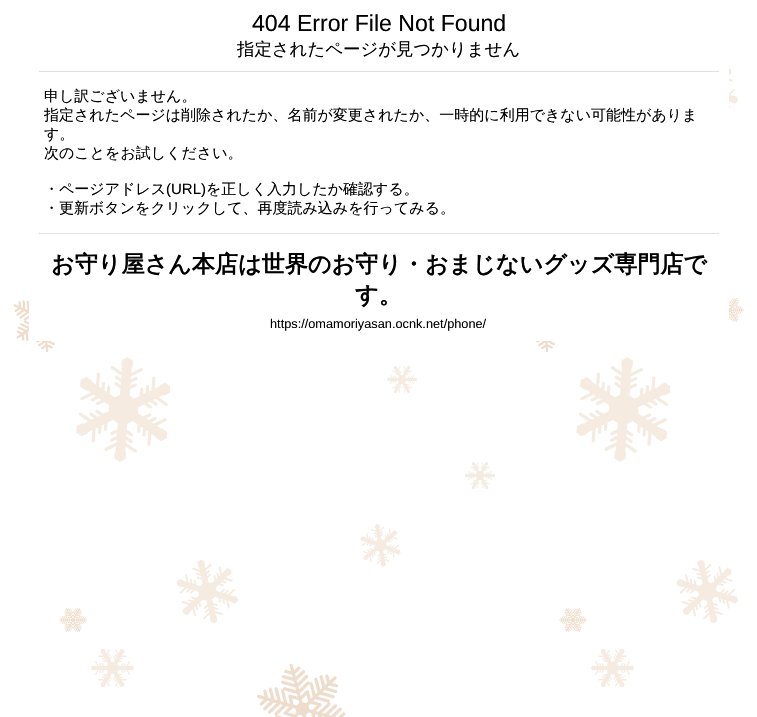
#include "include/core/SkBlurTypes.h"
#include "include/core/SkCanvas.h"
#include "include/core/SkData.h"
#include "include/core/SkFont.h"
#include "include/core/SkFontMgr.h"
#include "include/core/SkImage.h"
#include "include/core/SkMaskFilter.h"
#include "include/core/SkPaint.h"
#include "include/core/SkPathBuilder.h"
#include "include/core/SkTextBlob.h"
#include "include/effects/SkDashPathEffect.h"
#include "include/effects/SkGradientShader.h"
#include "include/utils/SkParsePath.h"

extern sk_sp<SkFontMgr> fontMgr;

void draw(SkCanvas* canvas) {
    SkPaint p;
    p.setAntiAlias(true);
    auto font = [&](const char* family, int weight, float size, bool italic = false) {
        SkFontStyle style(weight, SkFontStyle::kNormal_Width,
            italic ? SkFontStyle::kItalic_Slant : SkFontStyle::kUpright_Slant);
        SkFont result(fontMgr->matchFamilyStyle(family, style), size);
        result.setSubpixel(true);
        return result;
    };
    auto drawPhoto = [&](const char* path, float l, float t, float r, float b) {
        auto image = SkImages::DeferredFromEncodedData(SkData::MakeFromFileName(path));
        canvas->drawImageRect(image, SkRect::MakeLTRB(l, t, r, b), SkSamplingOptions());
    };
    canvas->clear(0xFFFFFFFF);
    drawPhoto("media/1.png", 13, 24, 744, 717);
    p.setColor(0xFFFFFFFF);
    canvas->drawRect(SkRect::MakeLTRB(29, 24, 729, 341), p);
    auto font1 = font("Liberation Sans", 400, 23.1f);
    p.setColor(0xFF000000);
    canvas->drawString("404 Error File Not Found", 252, 31, font1, p);
    auto font2 = font("WenQuanYi Zen Hei", 500, 17.4f);
    canvas->drawString("指定されたページが見つかりません", 237, 55, font2, p);
    p.setColor(0xFFE0DFE3);
    canvas->drawRect(SkRect::MakeLTRB(39, 71, 719, 72), p);
    canvas->drawRect(SkRect::MakeLTRB(39, 233, 719, 234), p);
    auto font3 = font("WenQuanYi Zen Hei", 500, 15);
    p.setColor(0xFF000000);
    {
        const struct { const char* s; float x, y; } items[] = {
            {"申し訳ございません。", 44, 101},
            {"指定されたページは削除されたか、名前が変更されたか、一時的に利用できない可能性がありま", 44, 120},
            {"す。", 44, 139},
            {"次のことをお試しください。", 44, 158},
            {"・ページアドレス", 44, 194},
        };
        for (auto [s, x, y] : items) {
            canvas->drawString(s, x, y, font3, p);
        }
    }
    auto font4 = font("Liberation Sans", 400, 15);
    canvas->drawString("(URL)", 166, 194, font4, p);
    canvas->drawString("を正しく入力したか確認する。", 206, 194, font3, p);
    canvas->drawString("・更新ボタンをクリックして、再度読み込みを行ってみる。", 44, 213, font3, p);
    auto font5 = font("WenQuanYi Zen Hei", 700, 23.1f);
    canvas->drawString("お守り屋さん本店は世界のお守り・おまじないグッズ専門店で", 51, 272, font5, p);
    canvas->drawString("す。", 355, 303, font5, p);
    auto font6 = font("Liberation Sans", 400, 12.75f);
    canvas->drawString("https://omamoriyasan.ocnk.net/phone/", 270, 328, font6, p);
}
